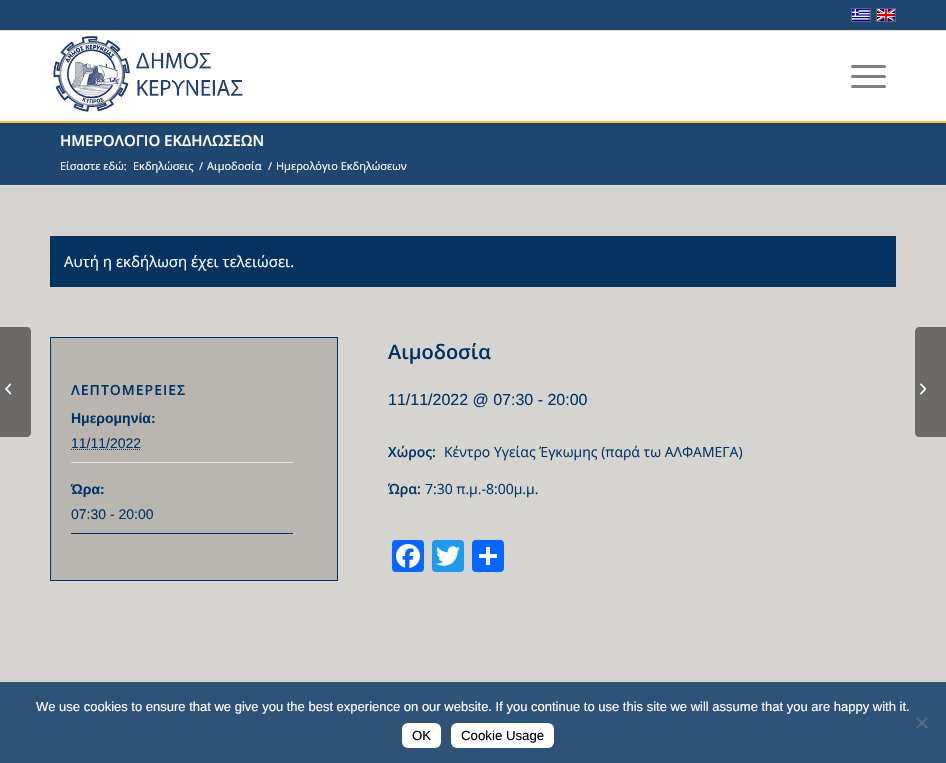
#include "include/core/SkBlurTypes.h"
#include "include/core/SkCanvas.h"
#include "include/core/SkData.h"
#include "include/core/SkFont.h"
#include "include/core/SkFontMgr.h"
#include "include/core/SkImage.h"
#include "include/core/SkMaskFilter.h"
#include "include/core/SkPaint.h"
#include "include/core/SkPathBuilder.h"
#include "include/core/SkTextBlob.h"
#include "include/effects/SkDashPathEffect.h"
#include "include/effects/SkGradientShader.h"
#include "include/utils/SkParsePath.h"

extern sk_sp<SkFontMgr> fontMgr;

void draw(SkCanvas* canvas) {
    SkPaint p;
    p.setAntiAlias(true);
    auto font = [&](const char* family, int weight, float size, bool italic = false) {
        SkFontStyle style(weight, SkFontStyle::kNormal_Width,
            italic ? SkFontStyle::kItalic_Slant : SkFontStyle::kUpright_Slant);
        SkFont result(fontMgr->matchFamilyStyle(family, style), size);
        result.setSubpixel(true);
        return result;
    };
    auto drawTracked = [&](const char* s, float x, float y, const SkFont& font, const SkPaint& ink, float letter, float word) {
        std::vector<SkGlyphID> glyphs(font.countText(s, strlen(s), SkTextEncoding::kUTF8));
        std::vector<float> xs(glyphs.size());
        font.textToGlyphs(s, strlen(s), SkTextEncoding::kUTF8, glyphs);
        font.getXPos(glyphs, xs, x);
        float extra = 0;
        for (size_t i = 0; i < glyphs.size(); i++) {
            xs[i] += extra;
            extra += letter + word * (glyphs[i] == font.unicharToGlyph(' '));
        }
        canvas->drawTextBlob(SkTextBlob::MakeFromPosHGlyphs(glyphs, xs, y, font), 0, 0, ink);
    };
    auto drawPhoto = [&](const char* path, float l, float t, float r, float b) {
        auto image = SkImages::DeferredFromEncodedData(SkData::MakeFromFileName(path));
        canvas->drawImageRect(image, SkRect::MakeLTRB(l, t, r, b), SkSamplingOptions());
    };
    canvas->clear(0xFF1D4670);
    p.setColor(0xFFE1E1E1);
    canvas->drawRect(SkRect::MakeLTRB(0, 30, 946, 31), p);
    p.setStyle(SkPaint::kStroke_Style);
    p.setStrokeWidth(1);
    p.setColor(0xFF4A6C8D);
    canvas->drawRect(SkRect::MakeLTRB(851.5f, 8.5f, 870.5f, 21.5f), p);
    drawPhoto("media/1.png", 852, 9, 870, 21);
    canvas->drawRect(SkRect::MakeLTRB(876.5f, 8.5f, 895.5f, 21.5f), p);
    drawPhoto("media/2.png", 877, 9, 895, 21);
    p.setStyle(SkPaint::kFill_Style);
    p.setColor(0xFFFFFFFF);
    canvas->drawRect(SkRect::MakeLTRB(0, 31, 946, 121), p);
    p.setColor(0xFFFFC422);
    canvas->drawRect(SkRect::MakeLTRB(0, 121, 946, 123), p);
    drawPhoto("media/3.png", 53, 36, 243, 112);
    p.setColor(0xFF808080);
    canvas->drawRoundRect(SkRect::MakeLTRB(851, 75, 886, 78), 1.5f, 1.5f, p);
    canvas->drawRoundRect(SkRect::MakeLTRB(851, 65, 886, 68), 1.5f, 1.5f, p);
    canvas->drawRoundRect(SkRect::MakeLTRB(851, 85, 886, 88), 1.5f, 1.5f, p);
    p.setColor(0xFFD6D4D1);
    canvas->drawRect(SkRect::MakeLTRB(0, 186, 946, 682), p);
    p.setColor(0xFF6B6A69);
    canvas->drawPath(SkPathBuilder().moveTo(0, 327).lineTo(27, 327).cubicTo(29, 327, 31, 329, 31, 331).lineTo(31, 433).cubicTo(31, 435, 29, 437, 27, 437).lineTo(0, 437).close().detach(), p);
    drawPhoto("media/4.png", 5, 383, 11, 395);
    auto font1 = font("Open Sans", 600, 15);
    p.setColor(0xFFFFFFFF);
    canvas->drawString("ΗΜΕΡΟΛΟΓΙΟ ΕΚΔΗΛΩΣΕΩΝ", 60, 146, font1, p);
    auto font2 = font("Open Sans", 400, 11);
    {
        const struct { const char* s; float x, y; } items[] = {
            {"Είσαστε εδώ:", 60, 170},
            {"Εκδηλώσεις", 133, 170},
            {"/", 199, 170},
            {"Αιμοδοσία", 207, 170},
            {"/", 268, 170},
            {"Ημερολόγιο Εκδηλώσεων", 276, 170},
        };
        for (auto [s, x, y] : items) {
            canvas->drawString(s, x, y, font2, p);
        }
    }
    p.setColor(0xFFE1E1E1);
    canvas->drawRect(SkRect::MakeLTRB(0, 185, 946, 186), p);
    p.setColor(0xFF043361);
    canvas->drawRect(SkRect::MakeLTRB(50, 236, 896, 287), p);
    auto font3 = font("Open Sans", 400, 15);
    p.setColor(0xFFFFFFFF);
    canvas->drawString("Αυτή η εκδήλωση έχει τελειώσει.", 64, 267, font3, p);
    p.setColor(0xFFB9B6B1);
    canvas->drawRect(SkRect::MakeLTRB(50.5f, 337.5f, 337.5f, 580.5f), p);
    p.setStyle(SkPaint::kStroke_Style);
    p.setColor(0xFF043361);
    canvas->drawRect(SkRect::MakeLTRB(50.5f, 337.5f, 337.5f, 580.5f), p);
    auto font4 = font("Open Sans", 600, 14);
    p.setStyle(SkPaint::kFill_Style);
    drawTracked("ΛΕΠΤΟΜΕΡΕΙΕΣ", 71, 395, font4, p, 1, 0);
    auto font5 = font("Liberation Sans", 700, 14);
    canvas->drawString("Ημερομηνία:", 71, 423, font5, p);
    p.setColor(0xFFE1E1E1);
    canvas->drawRect(SkRect::MakeLTRB(71, 462, 293, 463), p);
    auto font6 = font("Liberation Sans", 400, 14);
    p.setColor(0xFF043361);
    canvas->drawString("11/11/2022", 71, 448, font6, p);
    p.setStyle(SkPaint::kStroke_Style);
    p.setPathEffect(SkDashPathEffect::Make({{1, 1}}, 0));
    canvas->drawPath(SkPathBuilder().moveTo(71, 449.5f).lineTo(141, 449.5f).detach(), p);
    p.setPathEffect(nullptr);
    p.setStyle(SkPaint::kFill_Style);
    canvas->drawString("Ώρα:", 71, 494, font5, p);
    canvas->drawRect(SkRect::MakeLTRB(71, 533, 293, 534), p);
    canvas->drawString("07:30 - 20:00", 71, 519, font6, p);
    auto font7 = font("Open Sans", 600, 20);
    canvas->drawString("Αιμοδοσία", 388, 359, font7, p);
    auto font8 = font("Liberation Sans", 400, 16);
    canvas->drawString("11/11/2022 @ 07:30 - 20:00", 388, 405, font8, p);
    canvas->drawString("Χώρος:", 388, 457, font4, p);
    auto font9 = font("Open Sans", 400, 14);
    canvas->drawString("Κέντρο Υγείας Έγκωμης (παρά τω ΑΛΦΑΜΕΓΑ)", 444, 457, font9, p);
    canvas->drawString("Ώρα:", 388, 494, font4, p);
    canvas->drawString("7:30 π.μ.-8:00μ.μ.", 425, 494, font9, p);
    p.setColor(0xFF0866FF);
    canvas->drawRoundRect(SkRect::MakeLTRB(392, 540, 424, 572), 4, 4, p);
    drawPhoto("media/5.png", 396, 544, 420, 568);
    p.setColor(0xFF1D9BF0);
    canvas->drawRoundRect(SkRect::MakeLTRB(432, 540, 464, 572), 4, 4, p);
    drawPhoto("media/6.png", 436, 546, 460, 566);
    p.setColor(0xFF0166FF);
    canvas->drawRoundRect(SkRect::MakeLTRB(472, 540, 504, 572), 4, 4, p);
    p.setColor(0xFFFFFFFF);
    canvas->drawRect(SkRect::MakeLTRB(486, 547, 490, 565), p);
    canvas->drawRect(SkRect::MakeLTRB(479, 554, 497, 558), p);
    p.setColor(0xFF6B6A69);
    canvas->drawPath(SkPathBuilder().moveTo(919, 327).lineTo(946, 327).lineTo(946, 437).lineTo(919, 437).cubicTo(917, 437, 915, 435, 915, 433).lineTo(915, 331).cubicTo(915, 329, 917, 327, 919, 327).close().detach(), p);
    drawPhoto("media/7.png", 920, 383, 926, 395);
    p.setColor(0xFF2E5377);
    canvas->drawRect(SkRect::MakeLTRB(0, 682, 946, 763), p);
    auto font10 = font("Liberation Sans", 400, 13);
    p.setColor(0xFFFFFFFF);
    canvas->drawString("We use cookies to ensure that we give you the best experience on our website. If you continue to use this site we will assume that you are happy with it.", 36, 711, font10, p);
    p.setColor(0xFF576A7C);
    canvas->drawPath(SkPathBuilder().moveTo(926.5f, 717).lineTo(928, 718.5f).lineTo(917.5f, 729).lineTo(916, 727.5f).close().detach(), p);
    canvas->drawPath(SkPathBuilder().moveTo(916, 718.5f).lineTo(917.5f, 717).lineTo(928, 727.5f).lineTo(926.5f, 729).close().detach(), p);
    p.setColor(0xFFFFFFFF);
    canvas->drawRoundRect(SkRect::MakeLTRB(402, 723, 441, 748), 6, 6, p);
    auto font11 = font("Liberation Sans", 400, 13.25f);
    p.setColor(0xFF000000);
    canvas->drawString("OK", 412, 740, font11, p);
    p.setColor(0xFFFFFFFF);
    canvas->drawRoundRect(SkRect::MakeLTRB(451, 723, 554, 748), 6, 6, p);
    p.setColor(0xFF000000);
    canvas->drawString("Cookie Usage", 461, 740, font11, p);
}
